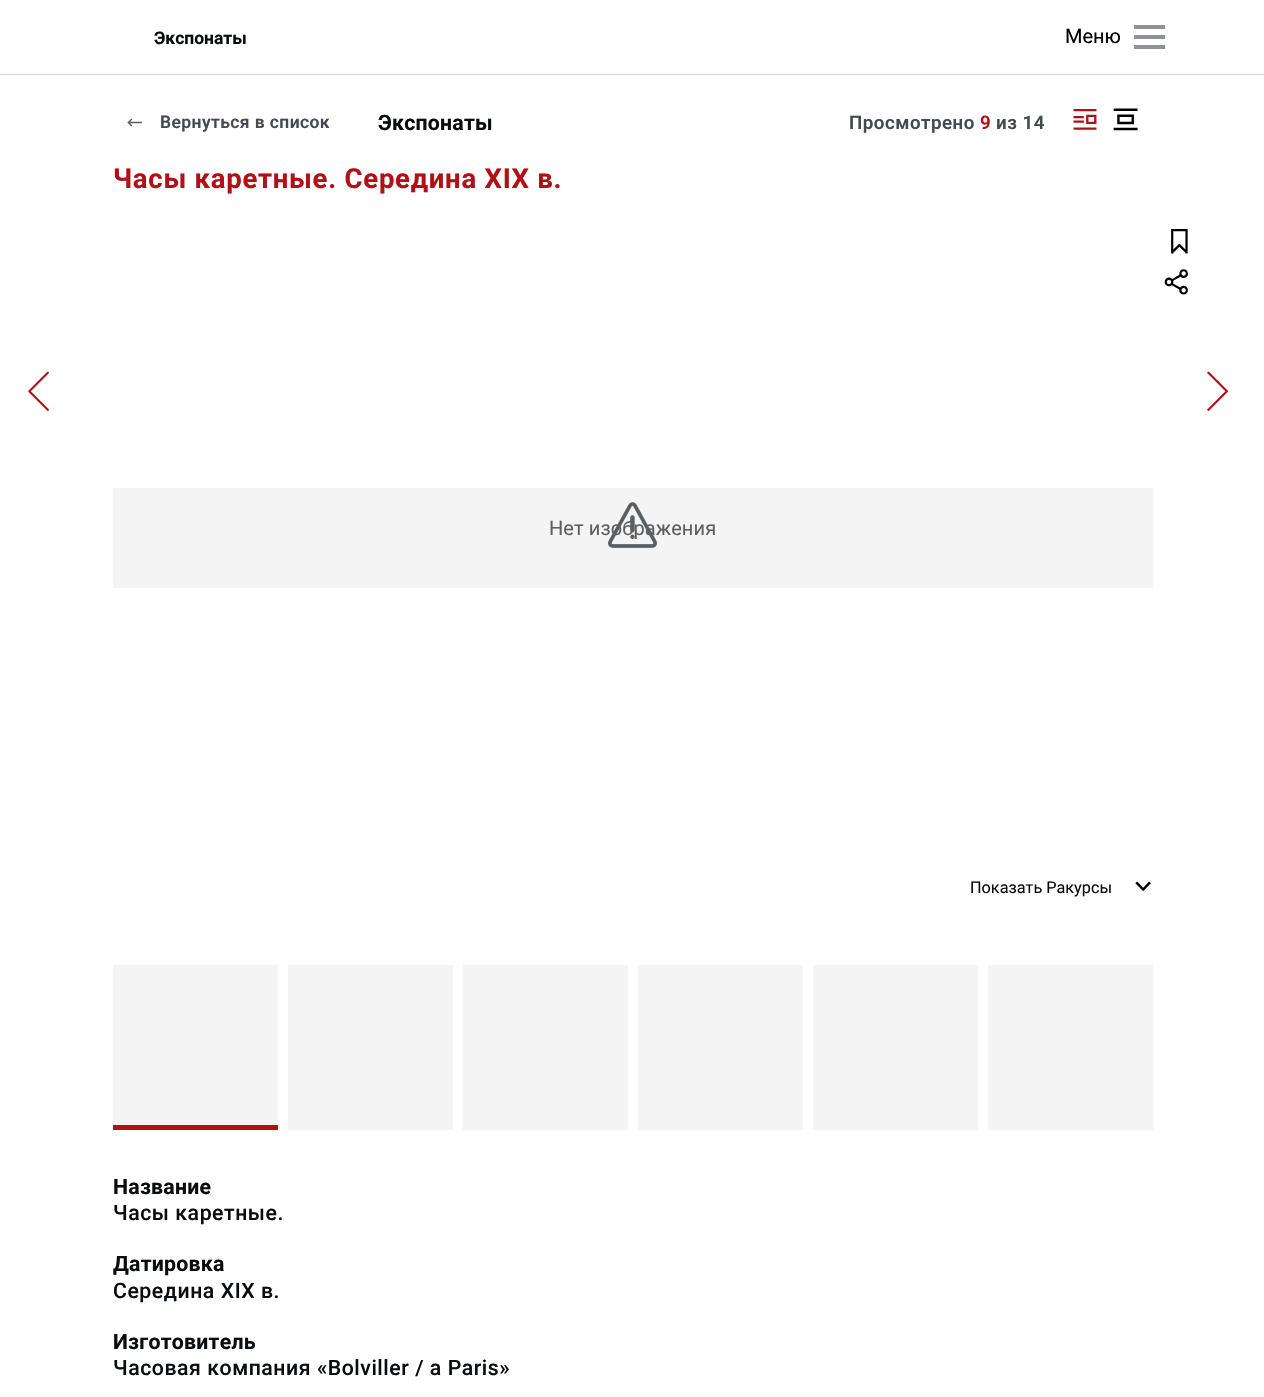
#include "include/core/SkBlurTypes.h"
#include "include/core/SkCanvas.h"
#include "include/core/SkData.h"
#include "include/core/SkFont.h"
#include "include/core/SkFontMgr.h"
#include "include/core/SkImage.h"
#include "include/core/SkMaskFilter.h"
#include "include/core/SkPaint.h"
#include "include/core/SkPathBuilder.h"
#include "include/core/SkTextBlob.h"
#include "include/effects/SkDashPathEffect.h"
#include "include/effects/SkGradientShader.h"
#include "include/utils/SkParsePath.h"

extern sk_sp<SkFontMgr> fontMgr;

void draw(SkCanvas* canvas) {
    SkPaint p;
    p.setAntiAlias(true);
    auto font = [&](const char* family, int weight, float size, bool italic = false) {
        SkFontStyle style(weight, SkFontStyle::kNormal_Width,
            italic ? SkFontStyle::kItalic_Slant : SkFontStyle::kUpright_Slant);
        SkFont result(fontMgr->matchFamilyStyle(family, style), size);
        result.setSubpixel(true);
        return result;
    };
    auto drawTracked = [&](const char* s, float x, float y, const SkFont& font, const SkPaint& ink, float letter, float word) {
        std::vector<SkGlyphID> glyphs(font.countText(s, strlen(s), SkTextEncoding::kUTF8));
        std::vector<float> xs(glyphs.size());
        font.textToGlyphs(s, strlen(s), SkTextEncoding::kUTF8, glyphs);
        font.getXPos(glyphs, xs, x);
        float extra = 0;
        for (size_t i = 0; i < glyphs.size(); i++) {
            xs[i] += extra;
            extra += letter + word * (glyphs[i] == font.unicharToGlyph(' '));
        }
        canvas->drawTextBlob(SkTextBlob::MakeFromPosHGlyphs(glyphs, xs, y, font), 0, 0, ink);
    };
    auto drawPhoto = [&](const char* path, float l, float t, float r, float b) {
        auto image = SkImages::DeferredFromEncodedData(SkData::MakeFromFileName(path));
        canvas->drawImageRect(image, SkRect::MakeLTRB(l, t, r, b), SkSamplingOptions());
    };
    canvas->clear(0xFFFFFFFF);
    p.setColor(0xFFD3D3D3);
    canvas->drawRect(SkRect::MakeLTRB(0, 74, 1264, 75), p);
    auto font1 = font("Roboto", 700, 17.5f);
    p.setColor(0xFF0A0D10);
    canvas->drawString("Экспонаты", 154, 44, font1, p);
    p.setColor(0xFF8E9195);
    canvas->drawRect(SkRect::MakeLTRB(1134, 25, 1165, 29), p);
    auto font2 = font("Roboto", 400, 20);
    p.setColor(0xFF000000);
    canvas->drawString("Меню", 1065, 43, font2, p);
    p.setColor(0xFF8E9195);
    canvas->drawRect(SkRect::MakeLTRB(1134, 35, 1165, 39), p);
    canvas->drawRect(SkRect::MakeLTRB(1134, 45, 1165, 49), p);
    drawPhoto("media/1.png", 127, 118, 143, 127);
    auto font3 = font("Roboto", 600, 17.5f);
    p.setColor(0xFF444A50);
    drawTracked("Вернуться в список", 160, 128, font3, p, 0.4f, 0);
    auto font4 = font("Roboto", 700, 21.25f);
    p.setColor(0xFF0A0D10);
    drawTracked("Экспонаты", 378, 130, font4, p, 0.25f, 0);
    auto font5 = font("Roboto", 600, 18.75f);
    p.setColor(0xFF444A50);
    drawTracked("Просмотрено", 849, 129, font5, p, 0.5f, 0);
    p.setColor(0xFFB11016);
    drawTracked("9", 980, 129, font5, p, 0.5f, 0);
    p.setColor(0xFF444A50);
    drawTracked("из 14", 996, 129, font5, p, 0.5f, 0);
    drawPhoto("media/2.png", 1073, 109, 1097, 130);
    drawPhoto("media/3.png", 1113, 108, 1138, 131);
    auto font6 = font("Roboto", 700, 27.5f);
    p.setColor(0xFFB11016);
    drawTracked("Часы каретные. Середина XIX в.", 113, 188, font6, p, 0.75f, 0);
    drawPhoto("media/4.png", 28, 371, 50, 411);
    drawPhoto("media/5.png", 1207, 371, 1228, 411);
    p.setColor(0xFFF4F4F5);
    canvas->drawRect(SkRect::MakeLTRB(113, 488, 1153, 588), p);
    p.setColor(0xFF5C5F62);
    drawTracked("Нет изображения", 549, 535, font2, p, 0.1f, 0);
    drawPhoto("media/6.png", 608, 502, 657, 548);
    auto font7 = font("Roboto", 400, 16.25f);
    p.setColor(0xFF0A0D10);
    canvas->drawString("Показать Ракурсы", 970, 893, font7, p);
    drawPhoto("media/7.png", 1135, 881, 1151, 891);
    {
        const struct { float l, t, r, b; SkColor color; } items[] = {
            {113, 965, 278, 1125, 0xFFF4F4F5},
            {113, 1125, 278, 1130, 0xFFB11016},
            {288, 965, 453, 1130, 0xFFF4F4F5},
            {463, 965, 628, 1130, 0xFFF4F4F5},
            {638, 965, 803, 1130, 0xFFF4F4F5},
            {813, 965, 978, 1130, 0xFFF4F4F5},
            {988, 965, 1153, 1130, 0xFFF4F4F5},
        };
        for (auto [l, t, r, b, color] : items) {
            p.setColor(color);
            canvas->drawRect(SkRect::MakeLTRB(l, t, r, b), p);
        }
    }
    drawPhoto("media/8.png", 1171, 229, 1188, 254);
    drawPhoto("media/9.png", 1164, 269, 1188, 295);
    p.setColor(0xFF0A0D10);
    drawTracked("Название", 113, 1194, font4, p, 0.25f, 0);
    auto font8 = font("Roboto", 500, 21.25f);
    drawTracked("Часы каретные.", 113, 1220, font8, p, 0.55f, 0);
    canvas->save();
    canvas->clipRect(SkRect::MakeLTRB(113, 1174, 1153, 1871));
    drawTracked("Датировка", 113, 1271, font4, p, 0.25f, 0);
    canvas->restore();
    drawTracked("Середина XIX в.", 113, 1298, font8, p, 0.55f, 0);
    drawTracked("Изготовитель", 113, 1349, font4, p, 0.25f, 0);
    drawTracked("Часовая компания «Bolviller / a Paris»", 113, 1375, font8, p, 0.55f, 0);
}
